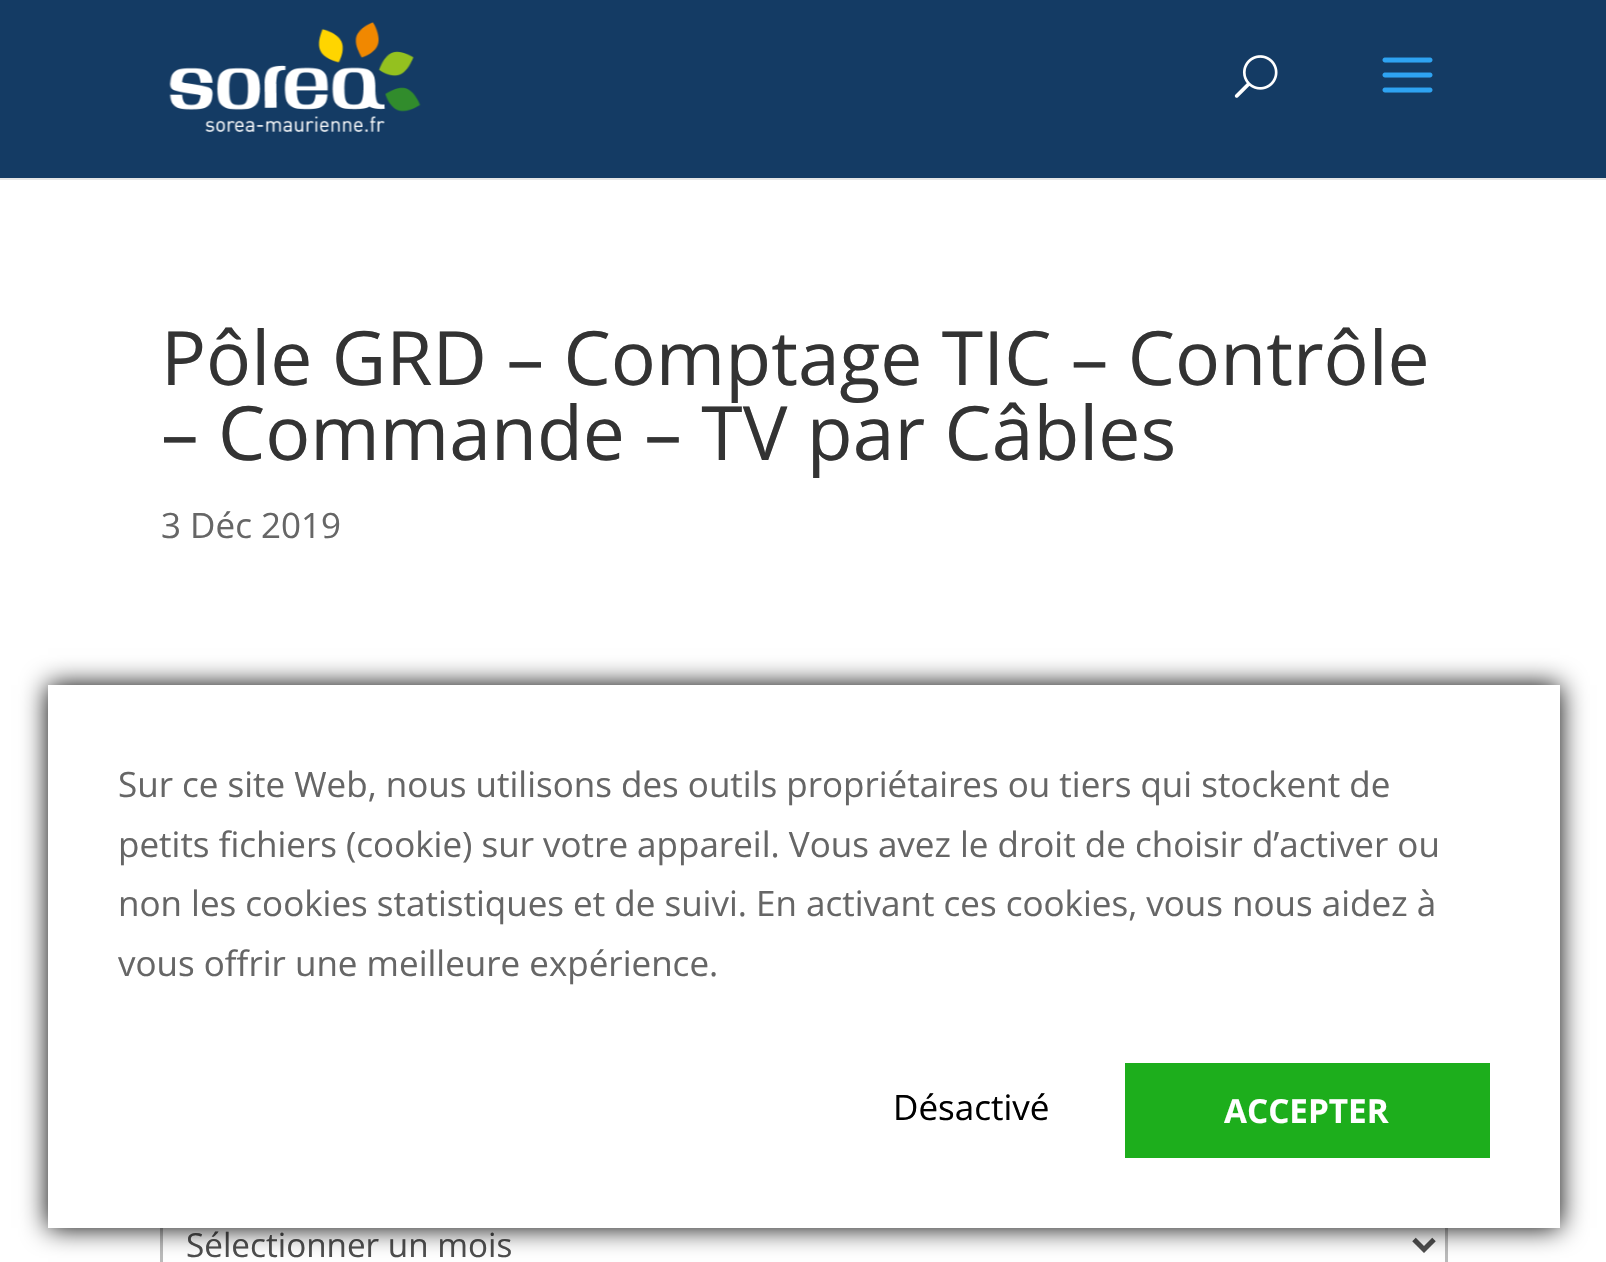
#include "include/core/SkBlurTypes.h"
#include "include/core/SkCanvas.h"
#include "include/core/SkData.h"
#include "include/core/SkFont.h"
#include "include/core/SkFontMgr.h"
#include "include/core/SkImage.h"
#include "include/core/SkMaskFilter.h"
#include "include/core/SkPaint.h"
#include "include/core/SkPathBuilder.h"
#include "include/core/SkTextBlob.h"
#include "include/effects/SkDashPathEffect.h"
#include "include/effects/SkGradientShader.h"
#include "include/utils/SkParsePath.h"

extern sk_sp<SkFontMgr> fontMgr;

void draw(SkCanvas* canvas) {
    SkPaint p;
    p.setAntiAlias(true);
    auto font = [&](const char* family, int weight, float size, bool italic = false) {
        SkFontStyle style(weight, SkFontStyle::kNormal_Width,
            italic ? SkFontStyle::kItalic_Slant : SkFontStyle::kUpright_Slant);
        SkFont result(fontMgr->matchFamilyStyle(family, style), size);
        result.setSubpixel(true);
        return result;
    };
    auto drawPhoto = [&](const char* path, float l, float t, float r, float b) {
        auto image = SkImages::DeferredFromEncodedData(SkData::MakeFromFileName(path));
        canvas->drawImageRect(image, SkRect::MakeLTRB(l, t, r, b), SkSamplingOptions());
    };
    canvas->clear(0xFFFFFFFF);
    p.setColor(0xFFE6E6E6);
    canvas->drawPath(SkPathBuilder().moveTo(0, 178).lineTo(0, 180).lineTo(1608, 180).lineTo(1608, -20).lineTo(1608, 178).close().detach(), p);
    p.setColor(0xFF143B64);
    canvas->drawRect(SkRect::MakeLTRB(0, 0, 1606, 178), p);
    drawPhoto("media/1.png", 169, 22, 421, 132);
    drawPhoto("media/2.png", 1234, 55, 1278, 98);
    drawPhoto("media/3.png", 1382, 57, 1433, 93);
    auto font1 = font("Open Sans", 400, 75);
    p.setColor(0xFF333333);
    canvas->drawString("Pôle GRD – Comptage TIC – Contrôle", 161, 385, font1, p);
    canvas->drawString("– Commande – TV par Câbles", 161, 460, font1, p);
    auto font2 = font("Open Sans", 400, 35);
    p.setColor(0xFF666666);
    canvas->drawString("3 Déc 2019", 161, 538, font2, p);
    p.setStyle(SkPaint::kStroke_Style);
    p.setStrokeWidth(3);
    p.setColor(0xFFBBBBBB);
    canvas->drawRect(SkRect::MakeLTRB(161.5f, 1211.5f, 1446.5f, 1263.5f), p);
    p.setStrokeWidth(5);
    p.setColor(0xFF4E4E4E);
    canvas->drawPath(SkPathBuilder().moveTo(1414, 1239.5f).lineTo(1424, 1249.5f).lineTo(1434, 1239.5f).detach(), p);
    auto font3 = font("Open Sans", 400, 33.25f);
    p.setStyle(SkPaint::kFill_Style);
    canvas->drawString("Sélectionner un mois", 186, 1257, font3, p);
    p.setColor(0xFF000000);
    p.setMaskFilter(SkMaskFilter::MakeBlur(kNormal_SkBlurStyle, 12.5f));
    canvas->drawRect(SkRect::MakeLTRB(48, 685, 1560, 1228), p);
    p.setMaskFilter(nullptr);
    p.setColor(0xFFFFFFFF);
    canvas->drawRect(SkRect::MakeLTRB(48, 685, 1560, 1228), p);
    p.setColor(0xFF666666);
    {
        const struct { const char* s; float x, y; } items[] = {
            {"Sur ce site Web, nous utilisons des outils propriétaires ou tiers qui stockent de", 118, 797},
            {"petits fichiers (cookie) sur votre appareil. Vous avez le droit de choisir d’activer ou", 118, 857},
            {"non les cookies statistiques et de suivi. En activant ces cookies, vous nous aidez à", 118, 916},
            {"vous offrir une meilleure expérience.", 118, 976},
        };
        for (auto [s, x, y] : items) {
            canvas->drawString(s, x, y, font2, p);
        }
    }
    p.setColor(0xFF000000);
    canvas->drawString("Désactivé", 893, 1120, font2, p);
    p.setColor(0xFF1DAE1C);
    canvas->drawRect(SkRect::MakeLTRB(1125, 1063, 1490, 1158), p);
    auto font4 = font("Open Sans", 700, 33.25f);
    p.setColor(0xFFFFFFFF);
    canvas->drawString("ACCEPTER", 1224, 1123, font4, p);
}
